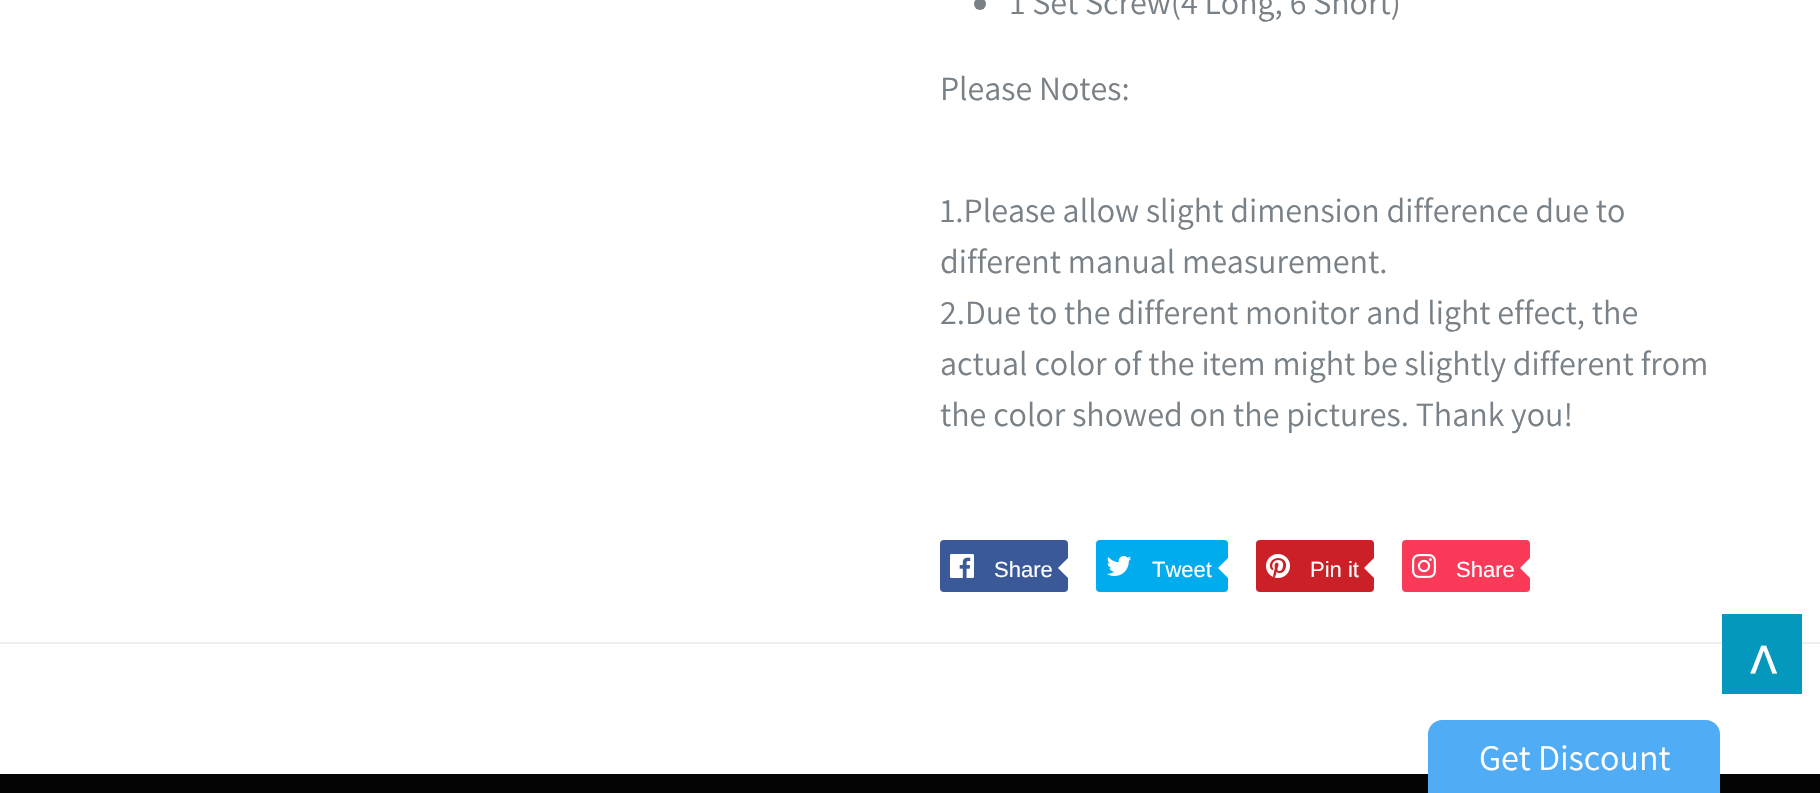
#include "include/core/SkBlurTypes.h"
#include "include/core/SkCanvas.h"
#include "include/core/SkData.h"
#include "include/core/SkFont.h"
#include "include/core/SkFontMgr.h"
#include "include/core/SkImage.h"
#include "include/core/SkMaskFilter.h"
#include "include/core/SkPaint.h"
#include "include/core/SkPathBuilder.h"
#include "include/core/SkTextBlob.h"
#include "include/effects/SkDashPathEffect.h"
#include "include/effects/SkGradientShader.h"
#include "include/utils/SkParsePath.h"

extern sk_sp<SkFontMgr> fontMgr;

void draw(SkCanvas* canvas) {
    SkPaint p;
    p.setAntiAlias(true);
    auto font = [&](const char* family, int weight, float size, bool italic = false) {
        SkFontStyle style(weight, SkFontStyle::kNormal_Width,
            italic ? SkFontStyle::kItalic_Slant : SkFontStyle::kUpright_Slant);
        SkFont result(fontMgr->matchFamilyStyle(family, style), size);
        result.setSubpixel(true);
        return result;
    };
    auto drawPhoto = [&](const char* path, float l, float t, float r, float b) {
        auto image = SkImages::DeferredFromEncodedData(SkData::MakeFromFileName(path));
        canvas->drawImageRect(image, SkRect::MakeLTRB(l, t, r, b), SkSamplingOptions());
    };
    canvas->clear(0xFFFFFFFF);
    p.setColor(0xFF788188);
    canvas->drawCircle(980, 4, 6, p);
    auto font1 = font("Assistant", 200, 34);
    {
        const struct { const char* s; float x, y; } items[] = {
            {"1 Set Screw(4 Long, 6 Short)", 1010, 14},
            {"Please Notes:", 940, 100},
            {"1.Please allow slight dimension difference due to", 940, 222},
            {"different manual measurement.", 940, 273},
            {"2.Due to the different monitor and light effect, the", 940, 324},
            {"actual color of the item might be slightly different from", 940, 375},
            {"the color showed on the pictures. Thank you!", 940, 426},
        };
        for (auto [s, x, y] : items) {
            canvas->drawString(s, x, y, font1, p);
        }
    }
    p.setColor(0xFF3B5998);
    canvas->drawRoundRect(SkRect::MakeLTRB(940, 540, 1068, 592), 4, 4, p);
    drawPhoto("media/1.png", 950, 554, 974, 578);
    auto font2 = font("Liberation Sans", 400, 22);
    p.setColor(0xFFFFFFFF);
    canvas->drawString("Share", 994, 577, font2, p);
    canvas->drawPath(SkPathBuilder().moveTo(1068, 558).lineTo(1068, 578).lineTo(1058, 568).close().detach(), p);
    p.setColor(0xFF00ACED);
    canvas->drawRoundRect(SkRect::MakeLTRB(1096, 540, 1228, 592), 4, 4, p);
    drawPhoto("media/2.png", 1106, 556, 1132, 576);
    p.setColor(0xFFFFFFFF);
    canvas->drawString("Tweet", 1152, 577, font2, p);
    canvas->drawPath(SkPathBuilder().moveTo(1228, 558).lineTo(1228, 578).lineTo(1218, 568).close().detach(), p);
    p.setColor(0xFFCB2027);
    canvas->drawRoundRect(SkRect::MakeLTRB(1256, 540, 1374, 592), 4, 4, p);
    drawPhoto("media/3.png", 1266, 554, 1290, 578);
    p.setColor(0xFFFFFFFF);
    canvas->drawString("Pin it", 1310, 577, font2, p);
    canvas->drawPath(SkPathBuilder().moveTo(1374, 558).lineTo(1374, 578).lineTo(1364, 568).close().detach(), p);
    p.setColor(0xFFFB3958);
    canvas->drawRoundRect(SkRect::MakeLTRB(1402, 540, 1530, 592), 4, 4, p);
    drawPhoto("media/4.png", 1412, 554, 1436, 578);
    p.setColor(0xFFFFFFFF);
    canvas->drawString("Share", 1456, 577, font2, p);
    canvas->drawPath(SkPathBuilder().moveTo(1530, 558).lineTo(1530, 578).lineTo(1520, 568).close().detach(), p);
    {
        const struct { float l, t, r, b; SkColor color; } items[] = {
            {0, 642, 1820, 644, 0xFFEEEEEE},
            {0, 774, 1820, 793, 0xFF040404},
            {1722, 614, 1802, 694, 0xFF0598BD},
        };
        for (auto [l, t, r, b, color] : items) {
            p.setColor(color);
            canvas->drawRect(SkRect::MakeLTRB(l, t, r, b), p);
        }
    }
    auto font3 = font("Assistant", 200, 72);
    p.setColor(0xFFFFFFFF);
    canvas->drawString("^", 1746, 694, font3, p);
    p.setColor(0xFF50ACF5);
    canvas->drawPath(SkPathBuilder().moveTo(1442, 720).lineTo(1706, 720).cubicTo(1713.5f, 720, 1720, 726.5f, 1720, 734).lineTo(1720, 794).lineTo(1428, 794).lineTo(1428, 734).cubicTo(1428, 726.5f, 1434.5f, 720, 1442, 720).close().detach(), p);
    auto font4 = font("Assistant", 200, 36);
    p.setColor(0xFFFFFFFF);
    canvas->drawString("Get Discount", 1479, 770, font4, p);
}
